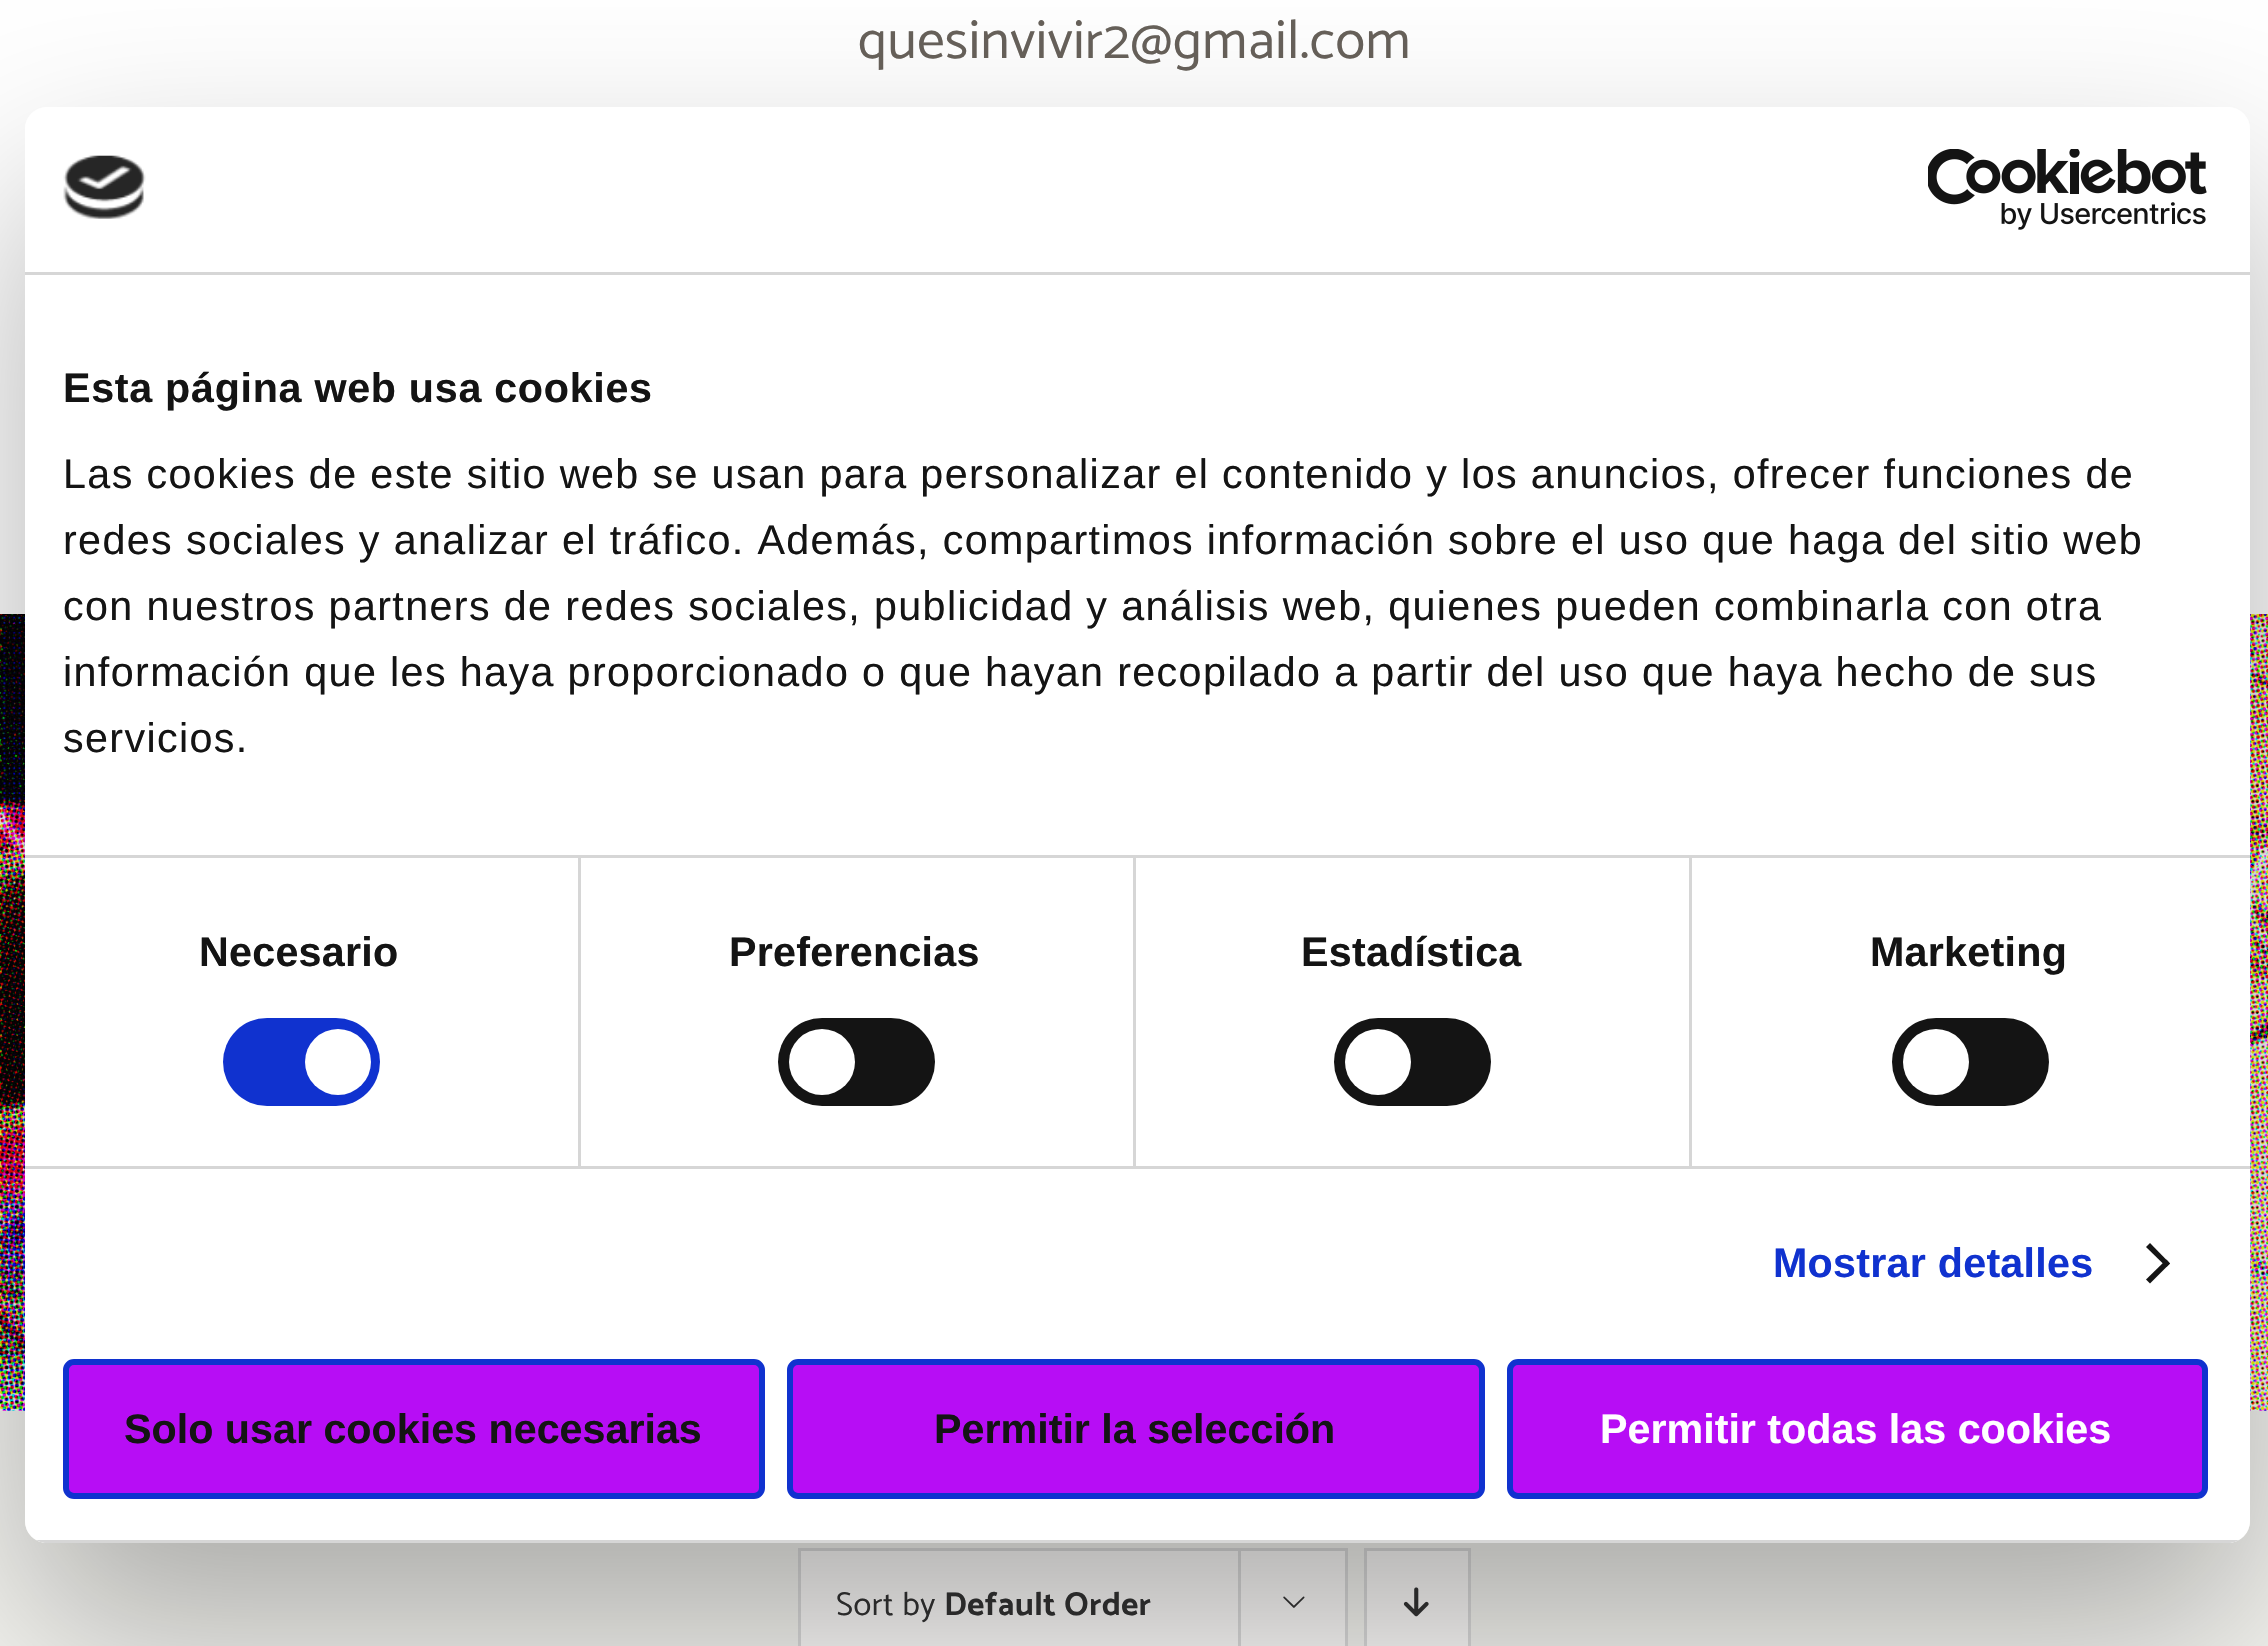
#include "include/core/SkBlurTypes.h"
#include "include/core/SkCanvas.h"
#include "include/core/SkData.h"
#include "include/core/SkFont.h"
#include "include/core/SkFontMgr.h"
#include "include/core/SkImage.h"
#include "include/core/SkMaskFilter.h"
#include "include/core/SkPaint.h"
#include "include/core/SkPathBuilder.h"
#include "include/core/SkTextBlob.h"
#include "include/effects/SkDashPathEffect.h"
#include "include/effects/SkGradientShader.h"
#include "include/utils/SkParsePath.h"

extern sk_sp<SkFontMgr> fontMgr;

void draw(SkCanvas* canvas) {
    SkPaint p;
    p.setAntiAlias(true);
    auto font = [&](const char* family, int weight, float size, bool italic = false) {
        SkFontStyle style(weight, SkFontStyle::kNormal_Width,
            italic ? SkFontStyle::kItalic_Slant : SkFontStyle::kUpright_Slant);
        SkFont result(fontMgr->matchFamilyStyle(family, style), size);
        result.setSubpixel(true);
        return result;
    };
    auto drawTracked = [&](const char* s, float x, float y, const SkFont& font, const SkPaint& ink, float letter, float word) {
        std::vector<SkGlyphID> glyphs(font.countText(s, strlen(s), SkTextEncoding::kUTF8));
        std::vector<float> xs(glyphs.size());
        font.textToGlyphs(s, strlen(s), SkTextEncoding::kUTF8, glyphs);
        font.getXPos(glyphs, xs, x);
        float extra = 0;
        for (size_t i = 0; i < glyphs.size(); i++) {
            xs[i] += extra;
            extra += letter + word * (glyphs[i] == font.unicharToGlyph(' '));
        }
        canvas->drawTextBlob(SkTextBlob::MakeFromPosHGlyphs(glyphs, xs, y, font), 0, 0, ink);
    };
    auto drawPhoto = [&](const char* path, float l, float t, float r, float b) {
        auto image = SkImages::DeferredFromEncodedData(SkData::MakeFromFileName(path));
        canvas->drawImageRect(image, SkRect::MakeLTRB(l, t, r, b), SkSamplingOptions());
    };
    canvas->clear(0xFFF5F5F1);
    drawPhoto("media/1.png", 0, 614, 2268, 1411);
    p.setColor(0x24000000);
    p.setMaskFilter(SkMaskFilter::MakeBlur(kNormal_SkBlurStyle, 69));
    canvas->drawRect(SkRect::MakeLTRB(6, 33, 2263, 635), p);
    p.setMaskFilter(nullptr);
    p.setColor(0xFFFFFFFF);
    canvas->drawRect(SkRect::MakeLTRB(0, 0, 2268, 614), p);
    auto font1 = font("Catamaran", 400, 55);
    p.setColor(0xFF67615A);
    drawTracked("quesinvivir2@gmail.com", 858, 58, font1, p, 0.55f, 0);
    p.setColor(0xFFFBFAF9);
    canvas->drawRect(SkRect::MakeLTRB(799.5f, 1549.5f, 1346.5f, 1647.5f), p);
    p.setStyle(SkPaint::kStroke_Style);
    p.setStrokeWidth(3);
    p.setColor(0xFFDBDBDB);
    canvas->drawRect(SkRect::MakeLTRB(799.5f, 1549.5f, 1346.5f, 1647.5f), p);
    auto font2 = font("Catamaran", 400, 33);
    p.setStyle(SkPaint::kFill_Style);
    p.setColor(0xFF333333);
    drawTracked("Sort by", 836, 1615, font2, p, 0.55f, 0);
    auto font3 = font("Catamaran", 700, 33);
    drawTracked("Default Order", 944, 1615, font3, p, 0.55f, 0);
    p.setColor(0xFFDBDBDB);
    canvas->drawRect(SkRect::MakeLTRB(1238, 1548, 1241, 1646), p);
    drawPhoto("media/2.png", 1283, 1596, 1305, 1608);
    p.setColor(0xFFFBFAF9);
    canvas->drawRect(SkRect::MakeLTRB(1365.5f, 1549.5f, 1469.5f, 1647.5f), p);
    p.setStyle(SkPaint::kStroke_Style);
    p.setColor(0xFFDBDBDB);
    canvas->drawRect(SkRect::MakeLTRB(1365.5f, 1549.5f, 1469.5f, 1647.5f), p);
    drawPhoto("media/3.png", 1403, 1587, 1429, 1617);
    canvas->save();
    canvas->clipPath(SkPathBuilder(SkPathFillType::kEvenOdd).moveTo(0, 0).lineTo(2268, 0).lineTo(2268, 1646).lineTo(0, 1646).close().moveTo(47, 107).lineTo(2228, 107).cubicTo(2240, 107, 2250, 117, 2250, 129).lineTo(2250, 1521).cubicTo(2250, 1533, 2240, 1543, 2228, 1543).lineTo(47, 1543).cubicTo(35, 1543, 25, 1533, 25, 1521).lineTo(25, 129).cubicTo(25, 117, 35, 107, 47, 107).close().detach(), true);
    p.setStyle(SkPaint::kFill_Style);
    p.setColor(0x4D000000);
    p.setMaskFilter(SkMaskFilter::MakeBlur(kNormal_SkBlurStyle, 93.5f));
    canvas->drawRoundRect(SkRect::MakeLTRB(25, 195, 2250, 1631), 22, 22, p);
    p.setMaskFilter(nullptr);
    canvas->restore();
    p.setColor(0xFFFFFFFF);
    canvas->drawRoundRect(SkRect::MakeLTRB(25, 107, 2250, 1543), 22, 22, p);
    p.setColor(0xFFD6D6D6);
    canvas->drawRect(SkRect::MakeLTRB(25, 272, 2250, 275), p);
    drawPhoto("media/4.png", 63, 155, 146, 219);
    drawPhoto("media/5.png", 1928, 149, 2207, 230);
    canvas->drawRect(SkRect::MakeLTRB(25, 855, 2250, 858), p);
    auto font4 = font("Liberation Sans", 700, 41.25f);
    p.setColor(0xFF141414);
    drawTracked("Esta página web usa cookies", 63, 402, font4, p, 0.7f, 0);
    auto font5 = font("Liberation Sans", 400, 41.25f);
    {
        const struct { const char* s; float x, y; } items[] = {
            {"Las cookies de este sitio web se usan para personalizar el contenido y los anuncios, ofrecer funciones de", 63, 488},
            {"redes sociales y analizar el tráfico. Además, compartimos información sobre el uso que haga del sitio web", 63, 554},
            {"con nuestros partners de redes sociales, publicidad y análisis web, quienes pueden combinarla con otra", 63, 620},
            {"información que les haya proporcionado o que hayan recopilado a partir del uso que haya hecho de sus", 63, 686},
            {"servicios.", 63, 752},
        };
        for (auto [s, x, y] : items) {
            drawTracked(s, x, y, font5, p, 1.38f, 0);
        }
    }
    p.setColor(0xFFD6D6D6);
    canvas->drawRect(SkRect::MakeLTRB(25, 1166, 2250, 1169), p);
    canvas->drawRect(SkRect::MakeLTRB(578, 858, 581, 1166), p);
    p.setColor(0xFF141414);
    drawTracked("Necesario", 199, 966, font4, p, 0.25f, 0);
    p.setColor(0xFF1032CF);
    canvas->drawRoundRect(SkRect::MakeLTRB(223, 1018, 380, 1106), 44, 44, p);
    p.setColor(0xFFFFFFFF);
    canvas->drawCircle(338, 1062, 33, p);
    p.setColor(0xFFD6D6D6);
    canvas->drawRect(SkRect::MakeLTRB(1133, 858, 1136, 1166), p);
    p.setColor(0xFF141414);
    drawTracked("Preferencias", 729, 966, font4, p, 0.25f, 0);
    canvas->drawRoundRect(SkRect::MakeLTRB(778, 1018, 935, 1106), 44, 44, p);
    p.setColor(0xFFFFFFFF);
    canvas->drawCircle(822, 1062, 33, p);
    p.setColor(0xFFD6D6D6);
    canvas->drawRect(SkRect::MakeLTRB(1689, 858, 1692, 1166), p);
    p.setColor(0xFF141414);
    drawTracked("Estadística", 1301, 966, font4, p, 0.25f, 0);
    canvas->drawRoundRect(SkRect::MakeLTRB(1334, 1018, 1491, 1106), 44, 44, p);
    p.setColor(0xFFFFFFFF);
    canvas->drawCircle(1378, 1062, 33, p);
    p.setColor(0xFF141414);
    drawTracked("Marketing", 1870, 966, font4, p, 0.25f, 0);
    canvas->drawRoundRect(SkRect::MakeLTRB(1892, 1018, 2049, 1106), 44, 44, p);
    p.setColor(0xFFFFFFFF);
    canvas->drawCircle(1936, 1062, 33, p);
    p.setColor(0xFF1032CF);
    drawTracked("Mostrar detalles", 1773, 1277, font4, p, 0.25f, 0);
    p.setColor(0xFF141414);
    canvas->drawPath(SkPathBuilder().moveTo(2150, 1243).lineTo(2170, 1263.5f).lineTo(2166.5f, 1267).lineTo(2146, 1247).close().detach(), p);
    canvas->drawPath(SkPathBuilder().moveTo(2166.5f, 1259.5f).lineTo(2170, 1263.5f).lineTo(2150, 1283.5f).lineTo(2146, 1279.5f).close().detach(), p);
    canvas->save();
    canvas->clipPath(SkPathBuilder().moveTo(47, 107).lineTo(2228, 107).cubicTo(2240, 107, 2250, 117, 2250, 129).lineTo(2250, 1521).cubicTo(2250, 1533, 2240, 1543, 2228, 1543).lineTo(47, 1543).cubicTo(35, 1543, 25, 1533, 25, 1521).lineTo(25, 129).cubicTo(25, 117, 35, 107, 47, 107).close().detach(), true);
    p.setColor(0xFFD6D6D6);
    canvas->drawRect(SkRect::MakeLTRB(36, 1540, 2239, 1543), p);
    canvas->restore();
    p.setColor(0xFFB70DF5);
    canvas->drawRoundRect(SkRect::MakeLTRB(66, 1362, 762, 1496), 8, 8, p);
    p.setStyle(SkPaint::kStroke_Style);
    p.setStrokeWidth(6);
    p.setColor(0xFF1032CF);
    canvas->drawRoundRect(SkRect::MakeLTRB(66, 1362, 762, 1496), 8, 8, p);
    p.setStyle(SkPaint::kFill_Style);
    p.setColor(0xFF141414);
    canvas->drawString("Solo usar cookies necesarias", 124, 1443, font4, p);
    p.setColor(0xFFB70DF5);
    canvas->drawRoundRect(SkRect::MakeLTRB(790, 1362, 1482, 1496), 8, 8, p);
    p.setStyle(SkPaint::kStroke_Style);
    p.setColor(0xFF1032CF);
    canvas->drawRoundRect(SkRect::MakeLTRB(790, 1362, 1482, 1496), 8, 8, p);
    p.setStyle(SkPaint::kFill_Style);
    p.setColor(0xFF141414);
    canvas->drawString("Permitir la selección", 934, 1443, font4, p);
    p.setColor(0xFFB70DF5);
    canvas->drawRoundRect(SkRect::MakeLTRB(1510, 1362, 2205, 1496), 8, 8, p);
    p.setStyle(SkPaint::kStroke_Style);
    p.setColor(0xFF1032CF);
    canvas->drawRoundRect(SkRect::MakeLTRB(1510, 1362, 2205, 1496), 8, 8, p);
    p.setStyle(SkPaint::kFill_Style);
    p.setColor(0xFFFFFFFF);
    canvas->drawString("Permitir todas las cookies", 1600, 1443, font4, p);
}
